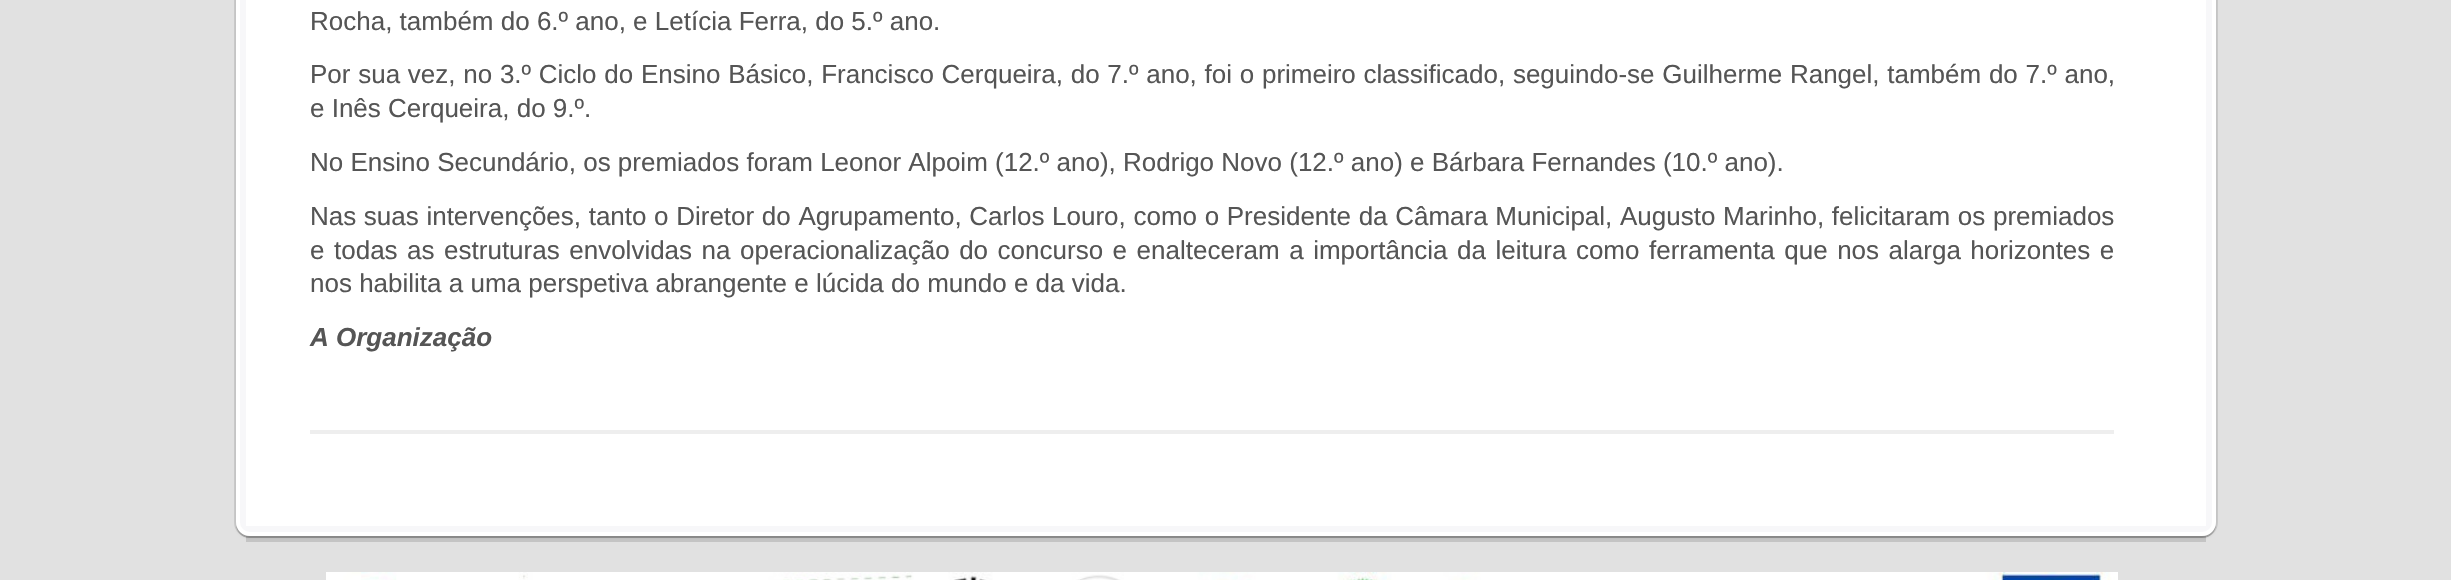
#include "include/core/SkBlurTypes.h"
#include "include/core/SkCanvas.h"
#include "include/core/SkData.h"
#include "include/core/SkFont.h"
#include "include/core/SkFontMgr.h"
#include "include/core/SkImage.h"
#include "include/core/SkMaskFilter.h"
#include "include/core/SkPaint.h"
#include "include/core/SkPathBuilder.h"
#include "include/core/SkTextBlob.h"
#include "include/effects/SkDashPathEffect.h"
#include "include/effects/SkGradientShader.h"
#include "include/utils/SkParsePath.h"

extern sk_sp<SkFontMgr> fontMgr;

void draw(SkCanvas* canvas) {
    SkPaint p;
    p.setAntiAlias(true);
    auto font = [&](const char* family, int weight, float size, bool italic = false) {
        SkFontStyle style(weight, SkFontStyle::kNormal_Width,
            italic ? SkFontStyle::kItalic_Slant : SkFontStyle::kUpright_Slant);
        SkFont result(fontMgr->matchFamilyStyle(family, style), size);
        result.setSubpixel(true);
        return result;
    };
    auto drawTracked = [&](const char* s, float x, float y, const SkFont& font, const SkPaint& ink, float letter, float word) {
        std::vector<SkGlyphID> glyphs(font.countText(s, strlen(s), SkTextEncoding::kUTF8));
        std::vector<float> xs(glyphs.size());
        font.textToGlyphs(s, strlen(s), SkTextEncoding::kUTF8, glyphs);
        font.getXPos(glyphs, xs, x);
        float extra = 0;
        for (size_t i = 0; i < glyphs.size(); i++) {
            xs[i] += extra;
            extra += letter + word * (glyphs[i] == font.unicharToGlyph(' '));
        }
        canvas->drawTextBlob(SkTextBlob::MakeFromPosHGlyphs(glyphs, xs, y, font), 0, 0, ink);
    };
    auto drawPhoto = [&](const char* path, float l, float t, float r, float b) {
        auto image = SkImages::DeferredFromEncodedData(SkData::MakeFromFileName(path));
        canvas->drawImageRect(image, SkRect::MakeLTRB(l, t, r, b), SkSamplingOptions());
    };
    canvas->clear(0xFFE1E1E1);
    p.setColor(0xFFC4C4C4);
    canvas->drawRect(SkRect::MakeLTRB(246, 536, 2206, 542), p);
    p.setColor(0x1A000002);
    p.setMaskFilter(SkMaskFilter::MakeBlur(kNormal_SkBlurStyle, 1));
    canvas->drawRoundRect(SkRect::MakeLTRB(236, -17, 2216, 538), 14, 14, p);
    p.setMaskFilter(nullptr);
    p.setColor(0x26000002);
    canvas->drawPath(SkPathBuilder().moveTo(236, 522).lineTo(236, 524).cubicTo(236, 532, 242, 538, 250, 538).lineTo(2202, 538).cubicTo(2210, 538, 2216, 532, 2216, 524).lineTo(2216, 522).cubicTo(2216, 530, 2210, 536, 2202, 536).lineTo(250, 536).cubicTo(242, 536, 236, 530, 236, 522).close().detach(), p);
    p.setStyle(SkPaint::kStroke_Style);
    p.setStrokeWidth(2);
    p.setColor(0x1A000002);
    canvas->drawRoundRect(SkRect::MakeLTRB(235, -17, 2217, 537), 15, 15, p);
    p.setStyle(SkPaint::kFill_Style);
    p.setColor(0xFFF7F7F9);
    canvas->drawRoundRect(SkRect::MakeLTRB(238, -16, 2214, 534), 12, 12, p);
    p.setStyle(SkPaint::kStroke_Style);
    p.setStrokeWidth(4);
    p.setColor(0xFFFFFFFF);
    canvas->drawRoundRect(SkRect::MakeLTRB(238, -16, 2214, 534), 12, 12, p);
    p.setStyle(SkPaint::kFill_Style);
    canvas->drawRect(SkRect::MakeLTRB(246, 0, 2206, 526), p);
    auto font1 = font("Liberation Sans", 400, 26);
    p.setColor(0xFF555555);
    canvas->drawString("Rocha, também do 6.º ano, e Letícia Ferra, do 5.º ano.", 310, 30, font1, p);
    drawTracked("Por sua vez, no 3.º Ciclo do Ensino Básico, Francisco Cerqueira, do 7.º ano, foi o primeiro classificado, seguindo-se Guilherme Rangel, também do 7.º ano,", 310, 83, font1, p, 0, 0.5f);
    canvas->drawString("e Inês Cerqueira, do 9.º.", 310, 117, font1, p);
    canvas->drawString("No Ensino Secundário, os premiados foram Leonor Alpoim (12.º ano), Rodrigo Novo (12.º ano) e Bárbara Fernandes (10.º ano).", 310, 171, font1, p);
    drawTracked("Nas suas intervenções, tanto o Diretor do Agrupamento, Carlos Louro, como o Presidente da Câmara Municipal, Augusto Marinho, felicitaram os premiados", 310, 225, font1, p, 0, 0.4f);
    drawTracked("e todas as estruturas envolvidas na operacionalização do concurso e enalteceram a importância da leitura como ferramenta que nos alarga horizontes e", 310, 259, font1, p, 0, 2.3f);
    canvas->drawString("nos habilita a uma perspetiva abrangente e lúcida do mundo e da vida.", 310, 292, font1, p);
    auto font2 = font("Liberation Sans", 700, 26, true);
    canvas->drawString("A Organização", 310, 346, font2, p);
    p.setColor(0xFFEEEEEE);
    canvas->drawRect(SkRect::MakeLTRB(310, 430, 2114, 434), p);
    drawPhoto("media/1.png", 326, 572, 2118, 580);
}
